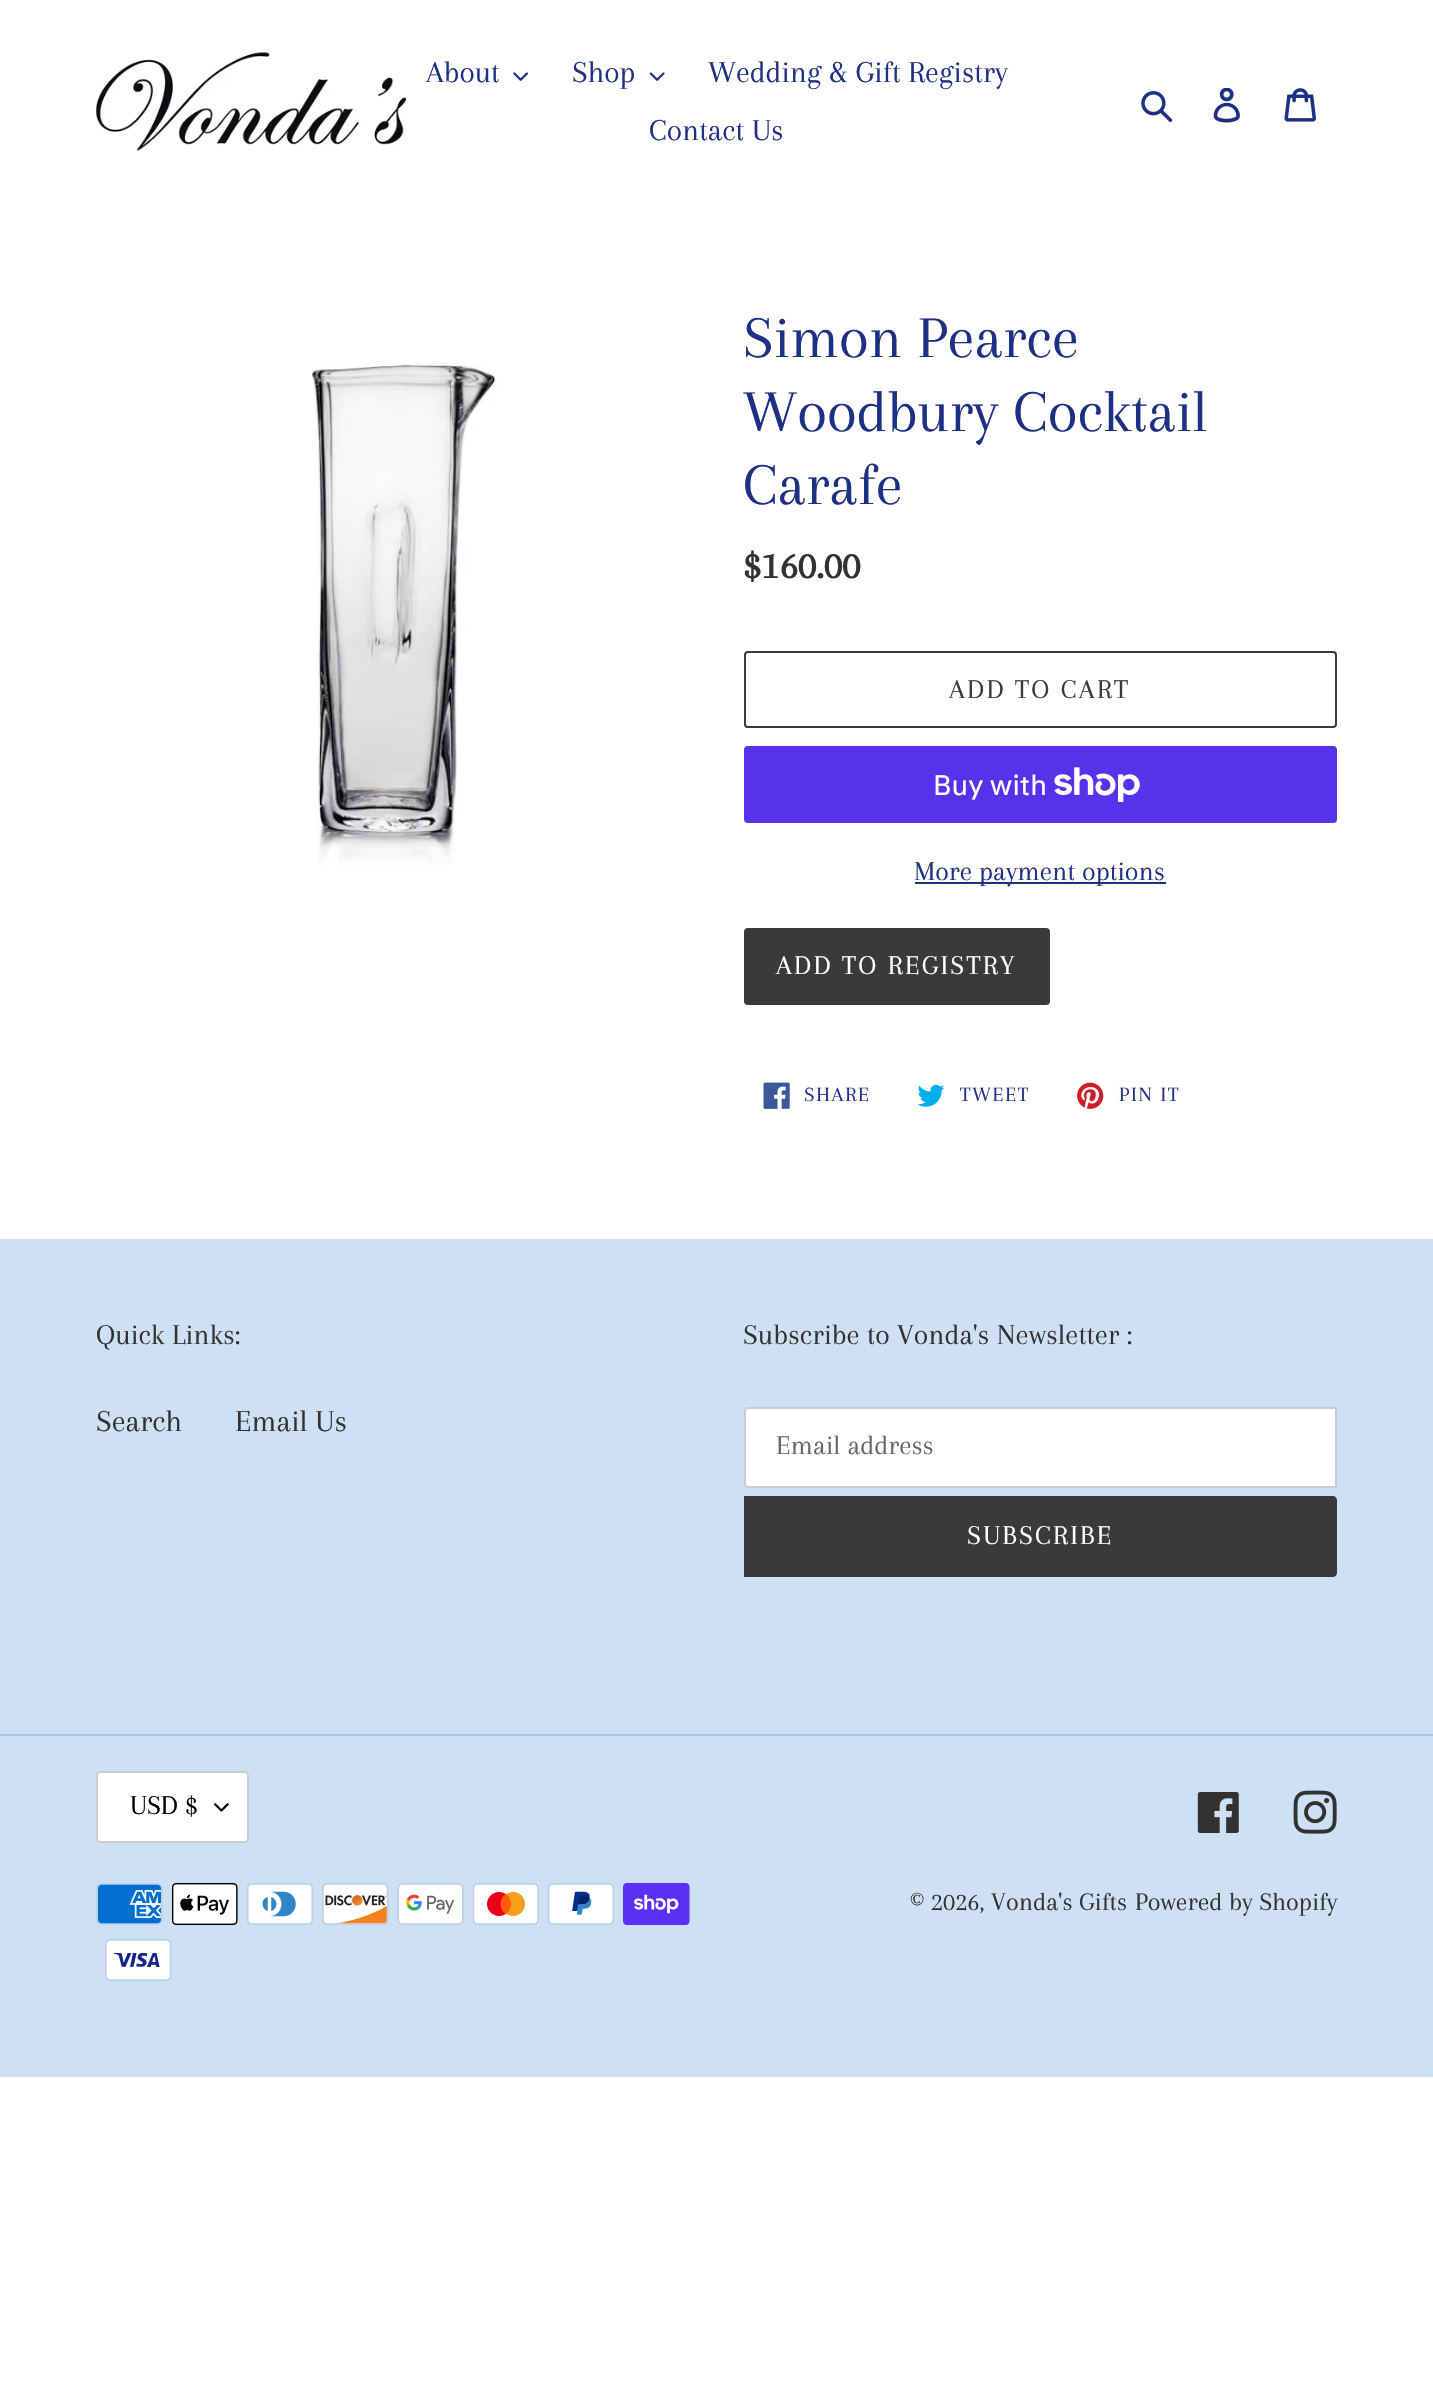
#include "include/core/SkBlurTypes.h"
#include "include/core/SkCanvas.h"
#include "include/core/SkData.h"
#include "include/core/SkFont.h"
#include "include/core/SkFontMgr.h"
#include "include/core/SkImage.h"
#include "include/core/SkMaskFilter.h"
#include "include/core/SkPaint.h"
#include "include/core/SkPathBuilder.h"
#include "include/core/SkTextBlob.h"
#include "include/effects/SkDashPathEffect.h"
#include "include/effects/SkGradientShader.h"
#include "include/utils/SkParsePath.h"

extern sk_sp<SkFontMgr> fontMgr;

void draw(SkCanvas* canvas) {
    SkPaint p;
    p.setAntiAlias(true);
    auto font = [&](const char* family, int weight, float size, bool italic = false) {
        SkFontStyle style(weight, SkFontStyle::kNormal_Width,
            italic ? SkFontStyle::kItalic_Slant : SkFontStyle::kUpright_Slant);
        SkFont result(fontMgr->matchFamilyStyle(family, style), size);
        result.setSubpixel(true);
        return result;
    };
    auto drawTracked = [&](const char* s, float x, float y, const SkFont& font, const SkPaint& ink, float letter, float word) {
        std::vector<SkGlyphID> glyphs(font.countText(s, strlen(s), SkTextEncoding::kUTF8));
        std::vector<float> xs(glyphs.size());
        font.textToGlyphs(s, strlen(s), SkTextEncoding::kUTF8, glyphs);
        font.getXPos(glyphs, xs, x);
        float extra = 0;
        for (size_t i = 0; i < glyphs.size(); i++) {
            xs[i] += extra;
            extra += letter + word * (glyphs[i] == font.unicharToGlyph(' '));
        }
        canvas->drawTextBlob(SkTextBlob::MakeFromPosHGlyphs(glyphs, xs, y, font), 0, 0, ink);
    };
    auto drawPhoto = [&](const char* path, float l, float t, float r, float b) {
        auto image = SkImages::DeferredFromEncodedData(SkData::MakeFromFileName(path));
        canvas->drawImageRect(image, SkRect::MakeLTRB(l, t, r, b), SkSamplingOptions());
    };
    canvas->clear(0xFFFFFFFF);
    drawPhoto("media/1.png", 96, 52, 406, 151);
    auto font1 = font("Arapey", 400, 31.5f);
    p.setColor(0xFF1E3083);
    canvas->drawString("About", 426, 82, font1, p);
    drawPhoto("media/2.png", 513, 72, 528, 81);
    canvas->drawString("Shop", 572, 82, font1, p);
    drawPhoto("media/3.png", 649, 72, 665, 81);
    canvas->drawString("Wedding & Gift Registry", 708, 82, font1, p);
    canvas->drawString("Contact Us", 649, 140, font1, p);
    drawPhoto("media/4.png", 1141, 91, 1173, 122);
    drawPhoto("media/5.png", 1213, 88, 1240, 123);
    drawPhoto("media/6.png", 1284, 88, 1316, 122);
    drawPhoto("media/7.png", 312, 362, 497, 865);
    auto font2 = font("Arapey", 400, 61.25f);
    {
        const struct { const char* s; float x, y; } items[] = {
            {"Simon Pearce", 743, 357},
            {"Woodbury Cocktail", 743, 431},
            {"Carafe", 743, 504},
        };
        for (auto [s, x, y] : items) {
            canvas->drawString(s, x, y, font2, p);
        }
    }
    auto font3 = font("Arapey", 700, 39.5f);
    p.setColor(0xFF333232);
    canvas->drawString("$160.00", 743, 578, font3, p);
    p.setStyle(SkPaint::kStroke_Style);
    p.setStrokeWidth(2);
    p.setColor(0xFF3A3A3A);
    canvas->drawRoundRect(SkRect::MakeLTRB(745, 652, 1336, 727), 3, 3, p);
    auto font4 = font("Arapey", 400, 28);
    p.setStyle(SkPaint::kFill_Style);
    drawTracked("ADD TO CART", 949, 698, font4, p, 2.25f, 0);
    p.setColor(0xFF5433EB);
    canvas->drawRoundRect(SkRect::MakeLTRB(744, 746, 1337, 823), 4, 4, p);
    auto font5 = font("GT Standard", 400, 28);
    p.setColor(0xFFFFFFFF);
    canvas->drawString("Buy with", 933, 795, font5, p);
    drawPhoto("media/8.png", 1054, 767, 1140, 802);
    p.setColor(0xFF1E3083);
    canvas->drawRect(SkRect::MakeLTRB(915, 882, 1166, 884), p);
    canvas->drawString("More payment options", 914, 880, font4, p);
    p.setColor(0xFF3A3A3A);
    canvas->drawRoundRect(SkRect::MakeLTRB(744, 928, 1050, 1005), 4, 4, p);
    p.setColor(0xFFFFFFFF);
    drawTracked("ADD TO REGISTRY", 776, 974, font4, p, 2.25f, 0);
    drawPhoto("media/9.png", 763, 1082, 790, 1109);
    auto font6 = font("Arapey", 400, 21);
    p.setColor(0xFF1E3083);
    drawTracked("SHARE", 804, 1101, font6, p, 1.75f, 0);
    drawPhoto("media/10.png", 917, 1084, 945, 1107);
    drawTracked("TWEET", 960, 1101, font6, p, 1.75f, 0);
    drawPhoto("media/11.png", 1077, 1082, 1104, 1109);
    drawTracked("PIN IT", 1119, 1101, font6, p, 1.75f, 0);
    p.setColor(0xFFCEE0F4);
    canvas->drawRect(SkRect::MakeLTRB(0, 1239, 1433, 2077), p);
    auto font7 = font("Arapey", 400, 29.75f);
    p.setColor(0xFF333232);
    canvas->drawString("Quick Links:", 96, 1344, font7, p);
    canvas->drawString("Search", 96, 1431, font1, p);
    canvas->drawString("Email Us", 235, 1431, font1, p);
    canvas->drawString("Subscribe to Vonda's Newsletter :", 743, 1344, font7, p);
    p.setColor(0xFFFFFFFF);
    canvas->drawPath(SkPathBuilder().moveTo(748, 1408).lineTo(1336, 1408).lineTo(1336, 1487).lineTo(748, 1487).cubicTo(746.5f, 1487, 745, 1485.5f, 745, 1484).lineTo(745, 1411).cubicTo(745, 1409.5f, 746.5f, 1408, 748, 1408).close().detach(), p);
    p.setStyle(SkPaint::kStroke_Style);
    p.setColor(0xFFCCCCCC);
    canvas->drawPath(SkPathBuilder().moveTo(748, 1408).lineTo(1336, 1408).lineTo(1336, 1487).lineTo(748, 1487).cubicTo(746.5f, 1487, 745, 1485.5f, 745, 1484).lineTo(745, 1411).cubicTo(745, 1409.5f, 746.5f, 1408, 748, 1408).close().detach(), p);
    p.setStyle(SkPaint::kFill_Style);
    p.setColor(0xFF666666);
    canvas->drawString("Email address", 776, 1454, font4, p);
    p.setColor(0xFF3A3A3A);
    canvas->drawPath(SkPathBuilder().moveTo(744, 1496).lineTo(1333, 1496).cubicTo(1335, 1496, 1337, 1498, 1337, 1500).lineTo(1337, 1573).cubicTo(1337, 1575, 1335, 1577, 1333, 1577).lineTo(744, 1577).close().detach(), p);
    p.setColor(0xFFFFFFFF);
    drawTracked("SUBSCRIBE", 967, 1544, font4, p, 2.25f, 0);
    p.setColor(0xFFA4C6EB);
    canvas->drawRect(SkRect::MakeLTRB(0, 1734, 1433, 1736), p);
    p.setColor(0xFFFFFFFF);
    canvas->drawRoundRect(SkRect::MakeLTRB(96, 1771, 249, 1843), 4, 4, p);
    drawPhoto("media/12.png", 214, 1803, 229, 1812);
    p.setStyle(SkPaint::kStroke_Style);
    p.setColor(0xFFCCCCCC);
    canvas->drawRoundRect(SkRect::MakeLTRB(97, 1772, 248, 1842), 3, 3, p);
    p.setStyle(SkPaint::kFill_Style);
    p.setColor(0xFF000000);
    canvas->drawString("USD $", 130, 1814, font4, p);
    drawPhoto("media/13.png", 1197, 1792, 1239, 1833);
    drawPhoto("media/14.png", 1293, 1790, 1337, 1834);
    drawPhoto("media/15.png", 96, 1883, 163, 1925);
    drawPhoto("media/16.png", 172, 1883, 238, 1925);
    drawPhoto("media/17.png", 247, 1883, 313, 1925);
    drawPhoto("media/18.png", 322, 1883, 389, 1925);
    drawPhoto("media/19.png", 397, 1883, 464, 1925);
    drawPhoto("media/20.png", 473, 1883, 539, 1925);
    drawPhoto("media/21.png", 548, 1883, 614, 1925);
    drawPhoto("media/22.png", 623, 1883, 690, 1925);
    drawPhoto("media/23.png", 105, 1939, 172, 1981);
    auto font8 = font("Arapey", 400, 26.25f);
    p.setColor(0xFF333232);
    canvas->drawString("© 2026, Vonda's Gifts", 910, 1910, font8, p);
    canvas->drawString("Powered by Shopify", 1135, 1910, font8, p);
}
